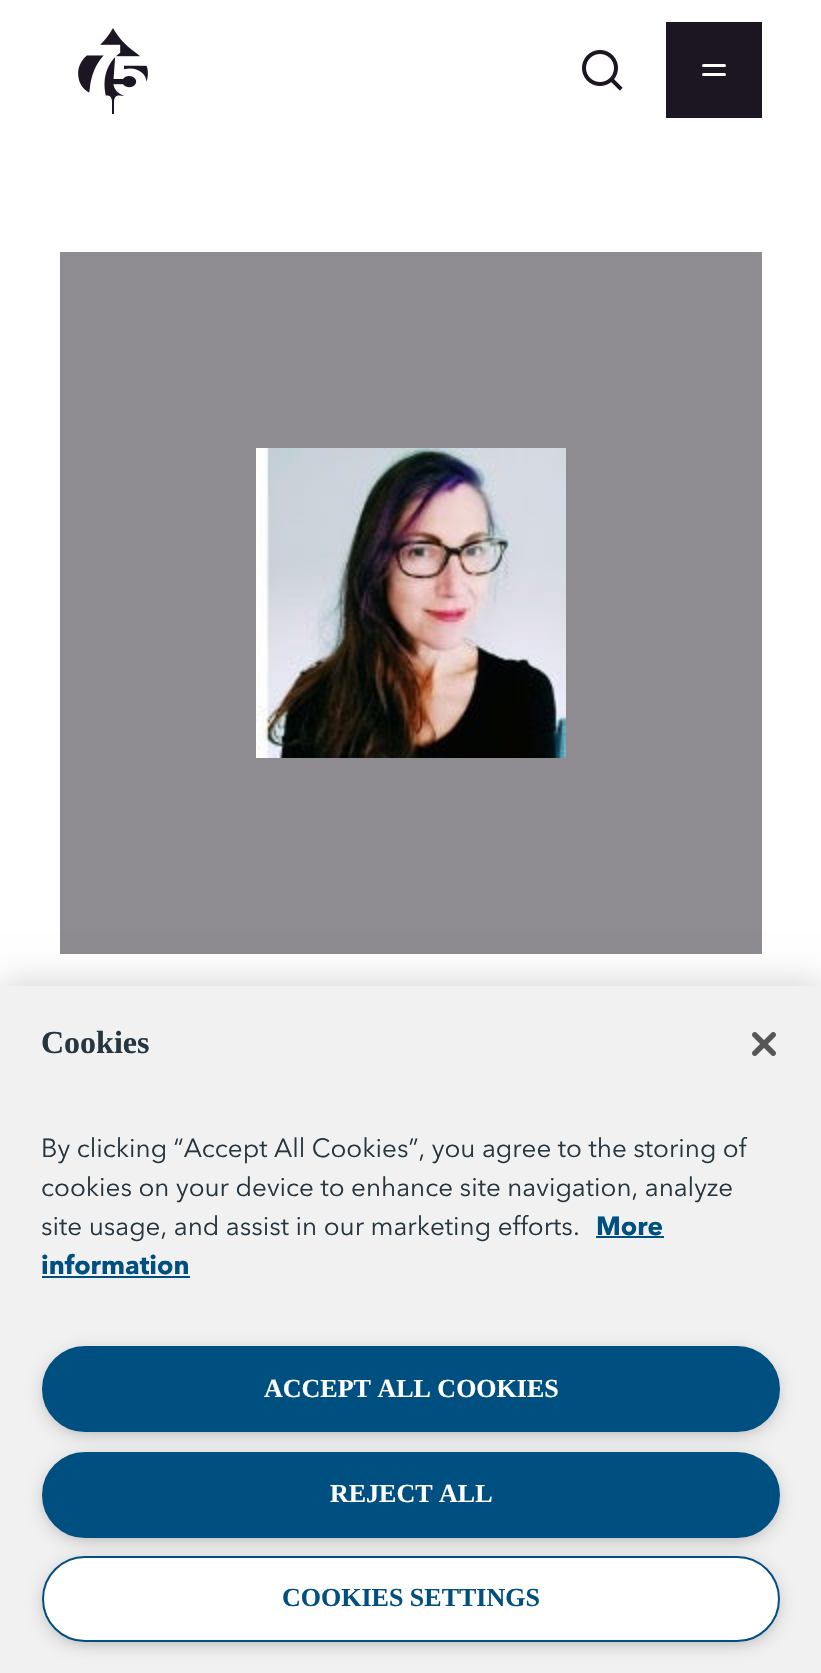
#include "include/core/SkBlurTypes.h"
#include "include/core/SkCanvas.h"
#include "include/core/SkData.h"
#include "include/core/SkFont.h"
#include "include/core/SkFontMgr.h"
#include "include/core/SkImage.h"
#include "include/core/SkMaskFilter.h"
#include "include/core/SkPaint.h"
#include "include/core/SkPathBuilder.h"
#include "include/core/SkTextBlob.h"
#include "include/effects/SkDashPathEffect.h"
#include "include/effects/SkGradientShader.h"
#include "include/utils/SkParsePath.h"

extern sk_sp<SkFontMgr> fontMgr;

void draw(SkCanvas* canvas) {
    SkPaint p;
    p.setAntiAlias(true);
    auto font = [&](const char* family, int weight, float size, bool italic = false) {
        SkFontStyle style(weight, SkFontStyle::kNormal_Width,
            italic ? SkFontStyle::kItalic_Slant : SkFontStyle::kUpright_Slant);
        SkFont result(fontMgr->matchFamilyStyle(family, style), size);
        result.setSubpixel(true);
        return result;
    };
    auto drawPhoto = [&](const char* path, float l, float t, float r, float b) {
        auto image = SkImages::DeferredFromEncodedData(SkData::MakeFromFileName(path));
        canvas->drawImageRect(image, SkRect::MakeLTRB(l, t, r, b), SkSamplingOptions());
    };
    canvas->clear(0xFFFFFFFF);
    drawPhoto("media/1.png", 78, 28, 148, 114);
    drawPhoto("media/2.png", 582, 50, 623, 91);
    p.setColor(0xFF1C1622);
    canvas->drawRect(SkRect::MakeLTRB(666, 22, 762, 118), p);
    p.setColor(0xFFFFFFFF);
    canvas->drawRoundRect(SkRect::MakeLTRB(702, 64, 726, 67), 1.5f, 1.5f, p);
    canvas->drawRoundRect(SkRect::MakeLTRB(702, 73, 726, 76), 1.5f, 1.5f, p);
    p.setColor(0xFF8E8B91);
    canvas->drawRect(SkRect::MakeLTRB(60, 252, 762, 954), p);
    drawPhoto("media/3.png", 256, 448, 566, 758);
    p.setColor(0x33000000);
    p.setMaskFilter(SkMaskFilter::MakeBlur(kNormal_SkBlurStyle, 18));
    canvas->drawRect(SkRect::MakeLTRB(0, 986, 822, 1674), p);
    p.setMaskFilter(nullptr);
    p.setColor(0xFFF1F1F1);
    canvas->drawRect(SkRect::MakeLTRB(0, 986, 821, 1673), p);
    auto font1 = font("Liberation Serif", 700, 32);
    p.setColor(0xFF263640);
    canvas->drawString("Cookies", 41, 1053, font1, p);
    auto font2 = font("Avenir Next", 400, 26);
    {
        const struct { const char* s; float x, y; } items[] = {
            {"By clicking “Accept All Cookies”, you agree to the storing of", 41, 1157},
            {"cookies on your device to enhance site navigation, analyze", 41, 1196},
            {"site usage, and assist in our marketing efforts.", 41, 1235},
        };
        for (auto [s, x, y] : items) {
            canvas->drawString(s, x, y, font2, p);
        }
    }
    auto font3 = font("Avenir Next", 700, 26);
    p.setColor(0xFF004F81);
    canvas->drawString("More", 596, 1235, font3, p);
    canvas->drawRect(SkRect::MakeLTRB(596, 1236, 664, 1238), p);
    canvas->drawString("information", 41, 1274, font3, p);
    canvas->drawRect(SkRect::MakeLTRB(42, 1276, 190, 1278), p);
    p.setColor(0xFF999999);
    p.setMaskFilter(SkMaskFilter::MakeBlur(kNormal_SkBlurStyle, 10));
    canvas->drawRoundRect(SkRect::MakeLTRB(48, 1356, 774, 1430), 37, 37, p);
    p.setMaskFilter(nullptr);
    p.setColor(0xFF004F81);
    canvas->drawRoundRect(SkRect::MakeLTRB(43, 1347, 779, 1431), 42, 42, p);
    p.setStyle(SkPaint::kStroke_Style);
    p.setStrokeWidth(2);
    canvas->drawRoundRect(SkRect::MakeLTRB(43, 1347, 779, 1431), 42, 42, p);
    auto font4 = font("Liberation Serif", 700, 26);
    p.setStyle(SkPaint::kFill_Style);
    p.setColor(0xFFFFFFFF);
    canvas->drawString("ACCEPT ALL COOKIES", 264, 1397, font4, p);
    p.setColor(0xFF999999);
    p.setMaskFilter(SkMaskFilter::MakeBlur(kNormal_SkBlurStyle, 10));
    canvas->drawRoundRect(SkRect::MakeLTRB(48, 1462, 774, 1536), 37, 37, p);
    p.setMaskFilter(nullptr);
    p.setColor(0xFF004F81);
    canvas->drawRoundRect(SkRect::MakeLTRB(43, 1453, 779, 1537), 42, 42, p);
    p.setStyle(SkPaint::kStroke_Style);
    canvas->drawRoundRect(SkRect::MakeLTRB(43, 1453, 779, 1537), 42, 42, p);
    p.setStyle(SkPaint::kFill_Style);
    p.setColor(0xFFFFFFFF);
    canvas->drawString("REJECT ALL", 330, 1502, font4, p);
    p.setColor(0xFF999999);
    p.setMaskFilter(SkMaskFilter::MakeBlur(kNormal_SkBlurStyle, 10));
    canvas->drawRoundRect(SkRect::MakeLTRB(48, 1566, 774, 1640), 37, 37, p);
    p.setMaskFilter(nullptr);
    p.setColor(0xFFFFFFFF);
    canvas->drawRoundRect(SkRect::MakeLTRB(43, 1557, 779, 1641), 42, 42, p);
    p.setStyle(SkPaint::kStroke_Style);
    p.setColor(0xFF004F81);
    canvas->drawRoundRect(SkRect::MakeLTRB(43, 1557, 779, 1641), 42, 42, p);
    p.setStyle(SkPaint::kFill_Style);
    canvas->drawString("COOKIES SETTINGS", 282, 1606, font4, p);
    drawPhoto("media/4.png", 752, 1032, 776, 1056);
}
